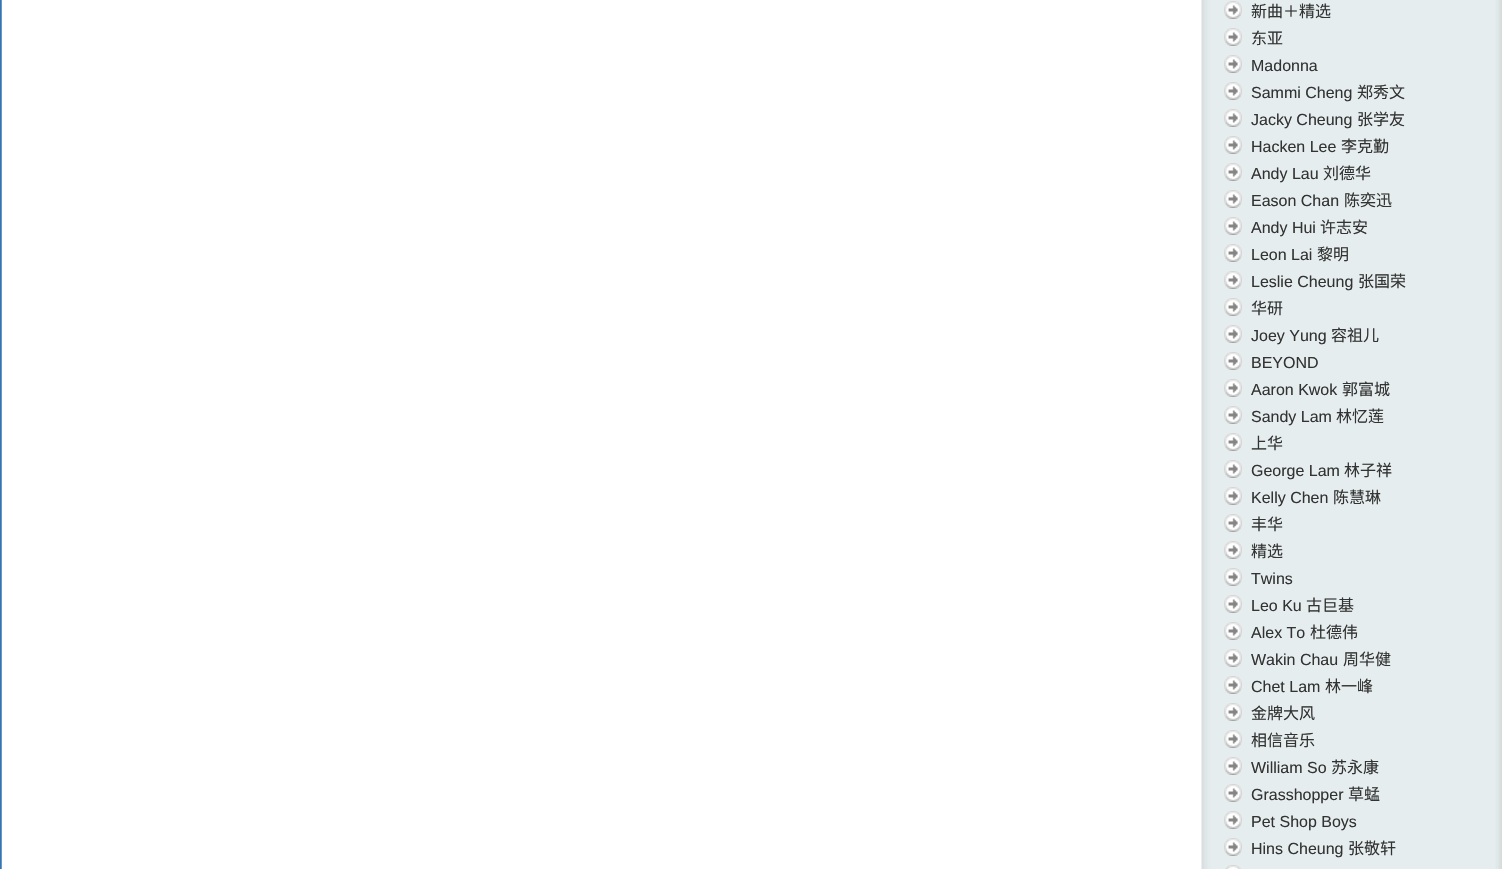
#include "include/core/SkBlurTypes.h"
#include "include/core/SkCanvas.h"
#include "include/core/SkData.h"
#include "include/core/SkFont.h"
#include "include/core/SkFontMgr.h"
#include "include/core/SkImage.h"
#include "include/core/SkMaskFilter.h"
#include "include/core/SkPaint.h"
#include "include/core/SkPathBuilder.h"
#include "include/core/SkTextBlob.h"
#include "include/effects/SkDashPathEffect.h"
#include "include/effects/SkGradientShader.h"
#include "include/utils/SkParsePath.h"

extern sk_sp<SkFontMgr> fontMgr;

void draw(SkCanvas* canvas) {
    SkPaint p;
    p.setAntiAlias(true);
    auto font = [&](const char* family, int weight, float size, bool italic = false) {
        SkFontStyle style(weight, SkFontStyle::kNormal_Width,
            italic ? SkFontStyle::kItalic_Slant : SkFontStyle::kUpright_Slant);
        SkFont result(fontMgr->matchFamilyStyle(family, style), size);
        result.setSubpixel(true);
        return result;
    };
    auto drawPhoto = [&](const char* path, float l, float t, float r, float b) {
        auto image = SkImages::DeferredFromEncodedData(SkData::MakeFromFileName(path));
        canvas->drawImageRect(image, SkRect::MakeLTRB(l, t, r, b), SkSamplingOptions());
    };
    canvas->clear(0xFF3873B3);
    p.setColor(0xFFD6DED4);
    canvas->drawRect(SkRect::MakeLTRB(1501, 0, 1502, 869), p);
    drawPhoto("media/1.png", 1, 0, 1501, 869);
    drawPhoto("media/2.png", 1224, 1, 1242, 19);
    auto font1 = font("Noto Sans CJK SC", 400, 16);
    p.setColor(0xFF333333);
    canvas->drawString("新曲＋精选", 1251, 17, font1, p);
    drawPhoto("media/2.png", 1224, 28, 1242, 46);
    canvas->drawString("东亚", 1251, 44, font1, p);
    drawPhoto("media/2.png", 1224, 55, 1242, 73);
    auto font2 = font("Liberation Sans", 400, 16);
    canvas->drawString("Madonna", 1251, 71, font2, p);
    drawPhoto("media/2.png", 1224, 82, 1242, 100);
    canvas->drawString("Sammi Cheng", 1251, 98, font2, p);
    canvas->drawString("郑秀文", 1357, 98, font1, p);
    drawPhoto("media/2.png", 1224, 109, 1242, 127);
    canvas->drawString("Jacky Cheung", 1251, 125, font2, p);
    canvas->drawString("张学友", 1357, 125, font1, p);
    drawPhoto("media/2.png", 1224, 136, 1242, 154);
    canvas->drawString("Hacken Lee", 1251, 152, font2, p);
    canvas->drawString("李克勤", 1341, 152, font1, p);
    drawPhoto("media/2.png", 1224, 163, 1242, 181);
    canvas->drawString("Andy Lau", 1251, 179, font2, p);
    canvas->drawString("刘德华", 1323, 179, font1, p);
    drawPhoto("media/2.png", 1224, 190, 1242, 208);
    canvas->drawString("Eason Chan", 1251, 206, font2, p);
    canvas->drawString("陈奕迅", 1344, 206, font1, p);
    drawPhoto("media/2.png", 1224, 217, 1242, 235);
    canvas->drawString("Andy Hui", 1251, 233, font2, p);
    canvas->drawString("许志安", 1320, 233, font1, p);
    drawPhoto("media/2.png", 1224, 244, 1242, 262);
    canvas->drawString("Leon Lai", 1251, 260, font2, p);
    canvas->drawString("黎明", 1317, 260, font1, p);
    drawPhoto("media/2.png", 1224, 271, 1242, 289);
    canvas->drawString("Leslie Cheung", 1251, 287, font2, p);
    canvas->drawString("张国荣", 1358, 287, font1, p);
    drawPhoto("media/2.png", 1224, 298, 1242, 316);
    canvas->drawString("华研", 1251, 314, font1, p);
    drawPhoto("media/2.png", 1224, 325, 1242, 343);
    canvas->drawString("Joey Yung", 1251, 341, font2, p);
    canvas->drawString("容祖儿", 1331, 341, font1, p);
    drawPhoto("media/2.png", 1224, 352, 1242, 370);
    canvas->drawString("BEYOND", 1251, 368, font2, p);
    drawPhoto("media/2.png", 1224, 379, 1242, 397);
    canvas->drawString("Aaron Kwok", 1251, 395, font2, p);
    canvas->drawString("郭富城", 1342, 395, font1, p);
    drawPhoto("media/2.png", 1224, 406, 1242, 424);
    canvas->drawString("Sandy Lam", 1251, 422, font2, p);
    canvas->drawString("林忆莲", 1336, 422, font1, p);
    drawPhoto("media/2.png", 1224, 433, 1242, 451);
    canvas->drawString("上华", 1251, 449, font1, p);
    drawPhoto("media/2.png", 1224, 460, 1242, 478);
    canvas->drawString("George Lam", 1251, 476, font2, p);
    canvas->drawString("林子祥", 1344, 476, font1, p);
    drawPhoto("media/2.png", 1224, 487, 1242, 505);
    canvas->drawString("Kelly Chen", 1251, 503, font2, p);
    canvas->drawString("陈慧琳", 1333, 503, font1, p);
    drawPhoto("media/2.png", 1224, 514, 1242, 532);
    canvas->drawString("丰华", 1251, 530, font1, p);
    drawPhoto("media/2.png", 1224, 541, 1242, 559);
    canvas->drawString("精选", 1251, 557, font1, p);
    drawPhoto("media/2.png", 1224, 568, 1242, 586);
    canvas->drawString("Twins", 1251, 584, font2, p);
    drawPhoto("media/2.png", 1224, 595, 1242, 613);
    canvas->drawString("Leo Ku", 1251, 611, font2, p);
    canvas->drawString("古巨基", 1306, 611, font1, p);
    drawPhoto("media/2.png", 1224, 622, 1242, 640);
    canvas->drawString("Alex To", 1251, 638, font2, p);
    canvas->drawString("杜德伟", 1310, 638, font1, p);
    drawPhoto("media/2.png", 1224, 649, 1242, 667);
    canvas->drawString("Wakin Chau", 1251, 665, font2, p);
    canvas->drawString("周华健", 1343, 665, font1, p);
    drawPhoto("media/2.png", 1224, 676, 1242, 694);
    canvas->drawString("Chet Lam", 1251, 692, font2, p);
    canvas->drawString("林一峰", 1325, 692, font1, p);
    drawPhoto("media/2.png", 1224, 703, 1242, 721);
    canvas->drawString("金牌大风", 1251, 719, font1, p);
    drawPhoto("media/2.png", 1224, 730, 1242, 748);
    canvas->drawString("相信音乐", 1251, 746, font1, p);
    drawPhoto("media/2.png", 1224, 757, 1242, 775);
    canvas->drawString("William So", 1251, 773, font2, p);
    canvas->drawString("苏永康", 1331, 773, font1, p);
    drawPhoto("media/2.png", 1224, 784, 1242, 802);
    canvas->drawString("Grasshopper", 1251, 800, font2, p);
    canvas->drawString("草蜢", 1348, 800, font1, p);
    drawPhoto("media/2.png", 1224, 811, 1242, 829);
    canvas->drawString("Pet Shop Boys", 1251, 827, font2, p);
    drawPhoto("media/2.png", 1224, 838, 1242, 856);
    canvas->drawString("Hins Cheung", 1251, 854, font2, p);
    canvas->drawString("张敬轩", 1348, 854, font1, p);
    drawPhoto("media/3.png", 1225, 865, 1241, 869);
}
